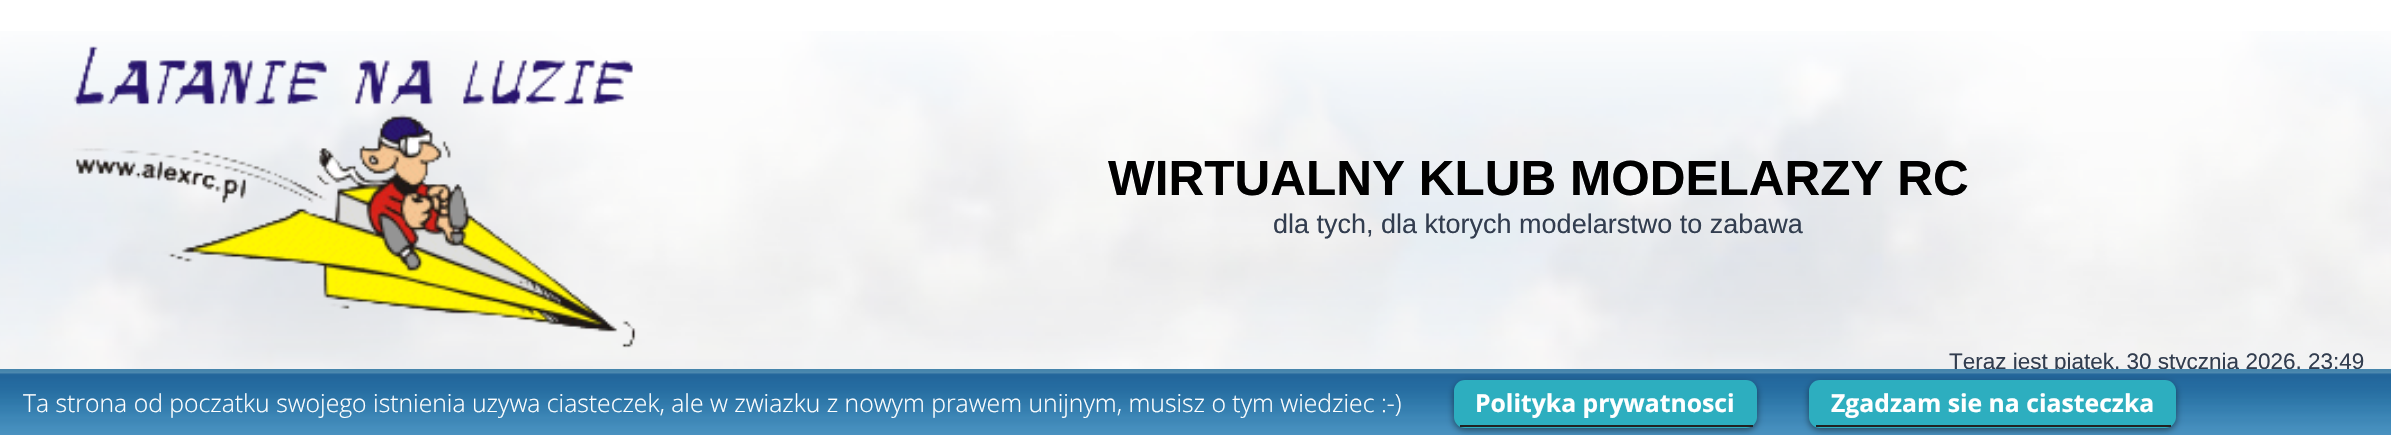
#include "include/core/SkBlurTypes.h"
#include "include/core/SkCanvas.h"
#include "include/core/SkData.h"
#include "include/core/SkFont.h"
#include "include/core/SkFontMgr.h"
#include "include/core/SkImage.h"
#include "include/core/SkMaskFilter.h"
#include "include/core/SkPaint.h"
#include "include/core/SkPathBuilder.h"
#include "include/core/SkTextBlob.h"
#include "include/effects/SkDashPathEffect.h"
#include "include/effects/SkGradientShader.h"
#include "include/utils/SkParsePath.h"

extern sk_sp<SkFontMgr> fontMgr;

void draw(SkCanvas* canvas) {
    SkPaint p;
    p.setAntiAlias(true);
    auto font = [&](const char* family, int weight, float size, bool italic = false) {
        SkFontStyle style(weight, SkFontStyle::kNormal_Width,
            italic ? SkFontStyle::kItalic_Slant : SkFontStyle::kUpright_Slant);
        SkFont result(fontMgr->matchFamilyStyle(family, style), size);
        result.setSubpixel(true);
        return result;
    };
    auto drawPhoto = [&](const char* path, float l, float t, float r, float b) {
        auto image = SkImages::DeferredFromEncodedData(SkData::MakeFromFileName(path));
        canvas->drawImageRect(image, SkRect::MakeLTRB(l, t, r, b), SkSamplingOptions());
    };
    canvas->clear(0xFFFFFFFF);
    drawPhoto("media/1.png", 0, 31, 2391, 369);
    drawPhoto("media/2.png", 73, 46, 636, 348);
    auto font1 = font("Liberation Sans", 700, 49.5f);
    p.setColor(0xFF000000);
    canvas->drawString("WIRTUALNY KLUB MODELARZY RC", 1108, 195, font1, p);
    auto font2 = font("Liberation Sans", 400, 27);
    p.setColor(0xFF323D4F);
    canvas->drawString("dla tych, dla ktorych modelarstwo to zabawa", 1273, 233, font2, p);
    auto font3 = font("Liberation Sans", 400, 22.5f);
    canvas->drawString("Teraz jest piątek, 30 stycznia 2026, 23:49", 1949, 369, font3, p);
    drawPhoto("media/3.png", 0, 369, 2391, 435);
    auto font4 = font("Open Sans", 300, 24.75f);
    p.setColor(0xFFFFFFFF);
    canvas->drawString("Ta strona od poczatku swojego istnienia uzywa ciasteczek, ale w zwiazku z nowym prawem unijnym, musisz o tym wiedziec :-)", 23, 412, font4, p);
    p.setColor(0x80000000);
    p.setMaskFilter(SkMaskFilter::MakeBlur(kNormal_SkBlurStyle, 3.5f));
    canvas->drawRoundRect(SkRect::MakeLTRB(1454, 383, 1757, 430), 11, 11, p);
    p.setMaskFilter(nullptr);
    p.setColor(0xFF2DAEBF);
    canvas->drawRoundRect(SkRect::MakeLTRB(1454, 380, 1757, 428), 11, 11, p);
    p.setColor(0xFF222222);
    canvas->drawRect(SkRect::MakeLTRB(1460, 425, 1753, 427), p);
    auto font5 = font("Open Sans", 700, 24.75f);
    p.setColor(0xFFFFFFFF);
    canvas->drawString("Polityka prywatnosci", 1475, 412, font5, p);
    p.setColor(0x80000000);
    p.setMaskFilter(SkMaskFilter::MakeBlur(kNormal_SkBlurStyle, 3.5f));
    canvas->drawRoundRect(SkRect::MakeLTRB(1809, 383, 2176, 430), 11, 11, p);
    p.setMaskFilter(nullptr);
    p.setColor(0xFF2DAEBF);
    canvas->drawRoundRect(SkRect::MakeLTRB(1809, 380, 2176, 428), 11, 11, p);
    p.setColor(0xFF222222);
    canvas->drawRect(SkRect::MakeLTRB(1816, 425, 2171, 427), p);
    p.setColor(0xFFFFFFFF);
    canvas->drawString("Zgadzam sie na ciasteczka", 1831, 412, font5, p);
}
